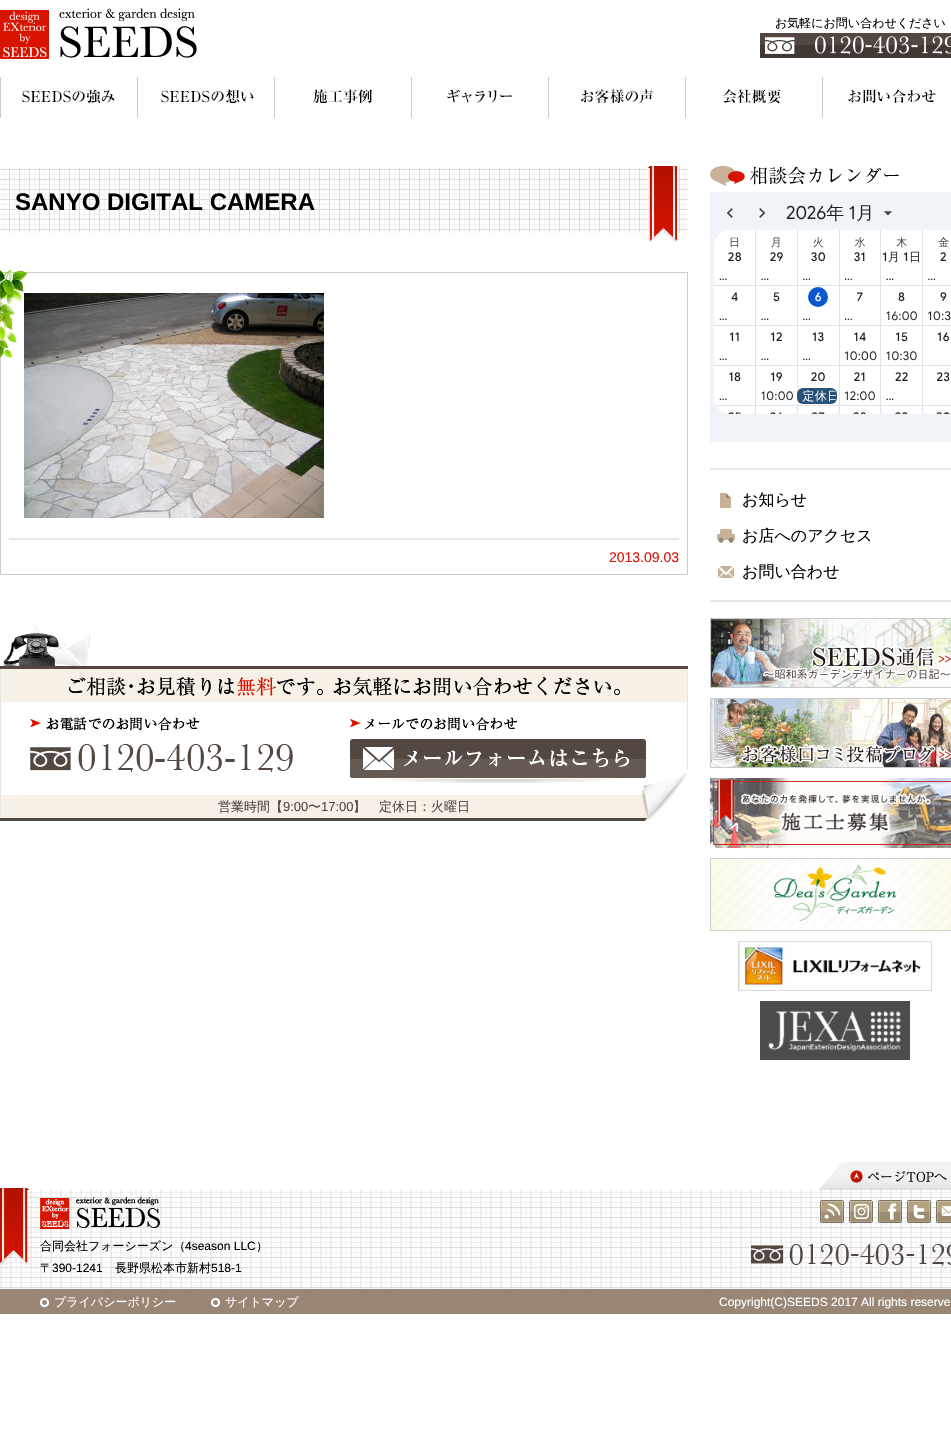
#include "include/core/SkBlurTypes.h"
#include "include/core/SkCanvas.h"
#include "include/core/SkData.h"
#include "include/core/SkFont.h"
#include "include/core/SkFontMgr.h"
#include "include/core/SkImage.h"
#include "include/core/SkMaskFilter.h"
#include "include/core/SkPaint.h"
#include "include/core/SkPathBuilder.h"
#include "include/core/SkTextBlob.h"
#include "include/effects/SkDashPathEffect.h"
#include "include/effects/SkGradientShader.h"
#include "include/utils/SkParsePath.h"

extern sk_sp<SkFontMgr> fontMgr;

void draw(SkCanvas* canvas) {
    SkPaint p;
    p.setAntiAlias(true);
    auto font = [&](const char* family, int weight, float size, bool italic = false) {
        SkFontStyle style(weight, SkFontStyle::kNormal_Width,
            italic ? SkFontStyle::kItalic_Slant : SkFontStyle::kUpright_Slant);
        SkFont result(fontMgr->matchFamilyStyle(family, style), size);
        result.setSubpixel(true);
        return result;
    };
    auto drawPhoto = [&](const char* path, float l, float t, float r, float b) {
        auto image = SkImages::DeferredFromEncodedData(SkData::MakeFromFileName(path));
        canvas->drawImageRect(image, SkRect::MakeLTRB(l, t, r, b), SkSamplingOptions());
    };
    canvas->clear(0xFFFFFFFF);
    drawPhoto("media/1.png", 0, 8, 197, 59);
    auto font1 = font("WenQuanYi Zen Hei", 500, 12);
    p.setColor(0xFF000000);
    canvas->drawString("お気軽にお問い合わせください", 775, 27, font1, p);
    drawPhoto("media/2.png", 760, 33, 951, 58);
    drawPhoto("media/3.png", 0, 77, 138, 118);
    drawPhoto("media/4.png", 161, 77, 275, 118);
    drawPhoto("media/5.png", 313, 77, 412, 118);
    drawPhoto("media/6.png", 447, 77, 549, 118);
    drawPhoto("media/7.png", 581, 77, 686, 118);
    drawPhoto("media/8.png", 722, 77, 823, 118);
    drawPhoto("media/9.png", 848, 89, 936, 104);
    drawPhoto("media/10.png", 0, 166, 688, 242);
    auto font2 = font("Liberation Sans", 700, 24);
    canvas->drawString("SANYO DIGITAL CAMERA", 15, 210, font2, p);
    p.setStyle(SkPaint::kStroke_Style);
    p.setStrokeWidth(1);
    p.setColor(0xFFCCCCCC);
    canvas->drawRect(SkRect::MakeLTRB(0.5f, 272.5f, 687.5f, 574.5f), p);
    drawPhoto("media/12.png", 24, 293, 324, 518);
    drawPhoto("media/11.png", 0, 269, 28, 359);
    p.setStyle(SkPaint::kFill_Style);
    p.setColor(0xFFE6E6E6);
    canvas->drawRect(SkRect::MakeLTRB(9, 538, 679, 540), p);
    auto font3 = font("Liberation Sans", 400, 14);
    p.setColor(0xFFD61400);
    canvas->drawString("2013.09.03", 609, 562, font3, p);
    drawPhoto("media/13.png", 0, 626, 688, 821);
    drawPhoto("media/14.png", 350, 739, 646, 783);
    auto font4 = font("WenQuanYi Zen Hei", 500, 13);
    p.setColor(0xFF534741);
    canvas->drawString("営業時間【", 218, 811, font4, p);
    auto font5 = font("Liberation Sans", 400, 13);
    canvas->drawString("9:00", 283, 811, font5, p);
    canvas->drawString("〜", 308, 811, font4, p);
    canvas->drawString("17:00", 321, 811, font5, p);
    canvas->drawString("】　定休日：火曜日", 353, 811, font4, p);
    p.setColor(0xFFE6E6E6);
    canvas->drawRect(SkRect::MakeLTRB(710, 468, 951, 470), p);
    drawPhoto("media/15.png", 710, 166, 899, 186);
    drawPhoto("media/16.png", 710, 192, 951, 442);
    canvas->drawRect(SkRect::MakeLTRB(710, 600, 951, 602), p);
    drawPhoto("media/17.png", 720, 493, 731, 508);
    auto font6 = font("WenQuanYi Zen Hei", 500, 16);
    p.setColor(0xFF000000);
    canvas->drawString("お知らせ", 742, 505, font6, p);
    drawPhoto("media/18.png", 717, 529, 735, 543);
    canvas->drawString("お店へのアクセス", 742, 541, font6, p);
    drawPhoto("media/19.png", 718, 566, 734, 578);
    canvas->drawString("お問い合わせ", 742, 577, font6, p);
    drawPhoto("media/20.png", 710, 618, 951, 688);
    drawPhoto("media/21.png", 710, 698, 951, 768);
    drawPhoto("media/22.png", 710, 778, 951, 848);
    drawPhoto("media/23.png", 710, 858, 951, 931);
    drawPhoto("media/24.png", 738, 941, 932, 991);
    drawPhoto("media/25.png", 760, 1001, 910, 1060);
    drawPhoto("media/26.png", 0, 1190, 951, 1289);
    drawPhoto("media/27.png", 819, 1162, 951, 1190);
    drawPhoto("media/28.png", 0, 1188, 30, 1265);
    drawPhoto("media/29.png", 40, 1197, 160, 1230);
    canvas->drawString("合同会社フォーシーズン（", 40, 1250, font1, p);
    auto font7 = font("Liberation Sans", 400, 12);
    canvas->drawString("4season LLC", 185, 1250, font7, p);
    canvas->drawString("）", 256, 1250, font1, p);
    canvas->drawString("〒", 40, 1272, font1, p);
    canvas->drawString("390-1241", 52, 1272, font7, p);
    canvas->drawString("長野県松本市新村", 115, 1272, font1, p);
    canvas->drawString("518-1", 211, 1272, font7, p);
    drawPhoto("media/30.png", 820, 1200, 844, 1223);
    drawPhoto("media/31.png", 849, 1200, 873, 1223);
    drawPhoto("media/32.png", 878, 1200, 902, 1223);
    drawPhoto("media/33.png", 907, 1200, 931, 1223);
    drawPhoto("media/34.png", 936, 1200, 951, 1223);
    drawPhoto("media/35.png", 751, 1244, 951, 1266);
    p.setColor(0xFF998675);
    canvas->drawRect(SkRect::MakeLTRB(0, 1289, 951, 1314), p);
    drawPhoto("media/36.png", 40, 1298, 49, 1307);
    p.setColor(0xFFFFFFFF);
    canvas->drawString("プライバシーポリシー", 54, 1306, font1, p);
    drawPhoto("media/36.png", 211, 1298, 220, 1307);
    canvas->drawString("サイトマップ", 225, 1306, font1, p);
    canvas->drawString("Copyright(C)SEEDS 2017 All rights reserve", 719, 1306, font7, p);
}
